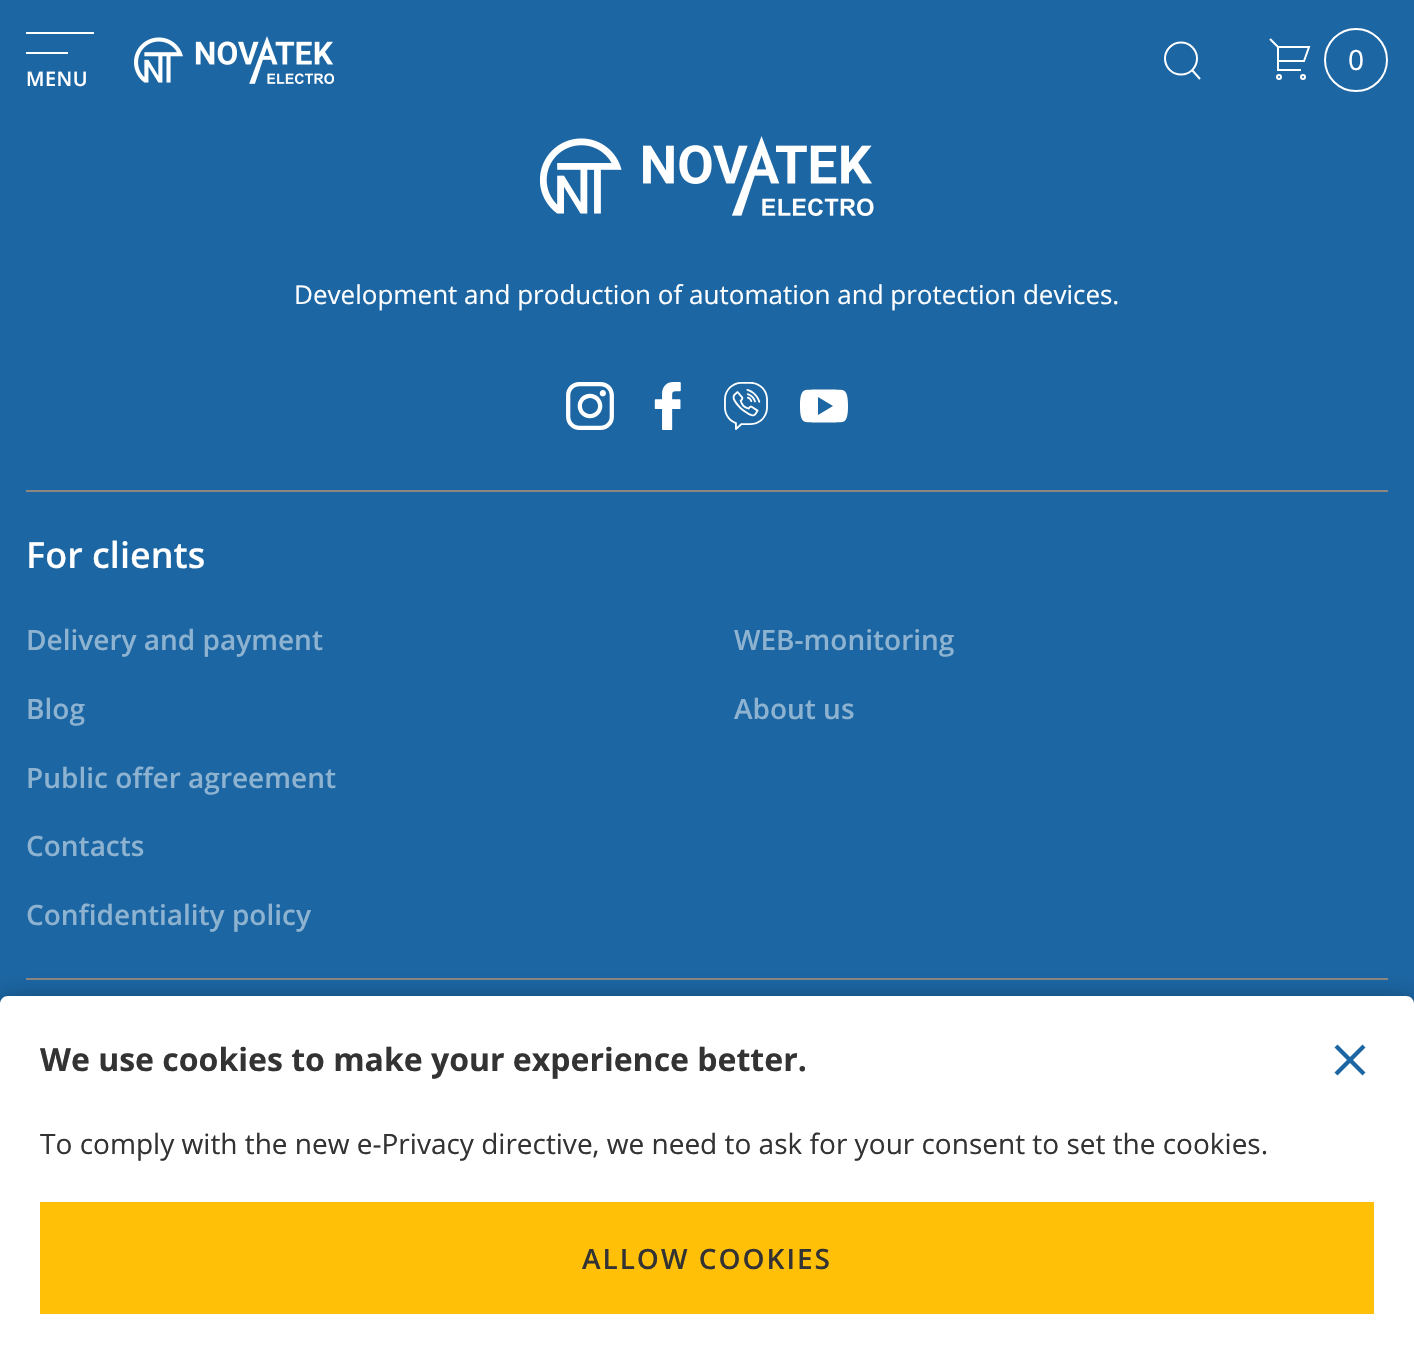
#include "include/core/SkBlurTypes.h"
#include "include/core/SkCanvas.h"
#include "include/core/SkData.h"
#include "include/core/SkFont.h"
#include "include/core/SkFontMgr.h"
#include "include/core/SkImage.h"
#include "include/core/SkMaskFilter.h"
#include "include/core/SkPaint.h"
#include "include/core/SkPathBuilder.h"
#include "include/core/SkTextBlob.h"
#include "include/effects/SkDashPathEffect.h"
#include "include/effects/SkGradientShader.h"
#include "include/utils/SkParsePath.h"

extern sk_sp<SkFontMgr> fontMgr;

void draw(SkCanvas* canvas) {
    SkPaint p;
    p.setAntiAlias(true);
    auto font = [&](const char* family, int weight, float size, bool italic = false) {
        SkFontStyle style(weight, SkFontStyle::kNormal_Width,
            italic ? SkFontStyle::kItalic_Slant : SkFontStyle::kUpright_Slant);
        SkFont result(fontMgr->matchFamilyStyle(family, style), size);
        result.setSubpixel(true);
        return result;
    };
    auto drawTracked = [&](const char* s, float x, float y, const SkFont& font, const SkPaint& ink, float letter, float word) {
        std::vector<SkGlyphID> glyphs(font.countText(s, strlen(s), SkTextEncoding::kUTF8));
        std::vector<float> xs(glyphs.size());
        font.textToGlyphs(s, strlen(s), SkTextEncoding::kUTF8, glyphs);
        font.getXPos(glyphs, xs, x);
        float extra = 0;
        for (size_t i = 0; i < glyphs.size(); i++) {
            xs[i] += extra;
            extra += letter + word * (glyphs[i] == font.unicharToGlyph(' '));
        }
        canvas->drawTextBlob(SkTextBlob::MakeFromPosHGlyphs(glyphs, xs, y, font), 0, 0, ink);
    };
    auto drawPhoto = [&](const char* path, float l, float t, float r, float b) {
        auto image = SkImages::DeferredFromEncodedData(SkData::MakeFromFileName(path));
        canvas->drawImageRect(image, SkRect::MakeLTRB(l, t, r, b), SkSamplingOptions());
    };
    canvas->clear(0xFF1C66A3);
    drawPhoto("media/1.png", 134, 36, 334, 84);
    drawPhoto("media/2.png", 1164, 41, 1201, 80);
    drawPhoto("media/3.png", 1269, 38, 1311, 80);
    p.setStyle(SkPaint::kStroke_Style);
    p.setStrokeWidth(2);
    p.setColor(0xFFFFFFFF);
    canvas->drawCircle(1356, 60, 31, p);
    auto font1 = font("Open Sans", 400, 28);
    p.setStyle(SkPaint::kFill_Style);
    canvas->drawString("0", 1348, 70, font1, p);
    canvas->drawRect(SkRect::MakeLTRB(26, 32, 94, 34), p);
    canvas->drawRect(SkRect::MakeLTRB(26, 52, 68, 54), p);
    auto font2 = font("Open Sans", 600, 20);
    drawTracked("MENU", 26, 86, font2, p, 0.5f, 0);
    p.setColor(0xFF8C8782);
    canvas->drawRect(SkRect::MakeLTRB(26, 490, 1388, 492), p);
    drawPhoto("media/4.png", 540, 136, 874, 216);
    auto font3 = font("Open Sans", 400, 26);
    p.setColor(0xFFFFFFFF);
    canvas->drawString("Development and production of automation and protection devices.", 294, 304, font3, p);
    drawPhoto("media/5.png", 566, 382, 614, 430);
    drawPhoto("media/6.png", 654, 382, 681, 430);
    drawPhoto("media/7.png", 724, 382, 768, 430);
    drawPhoto("media/8.png", 800, 389, 848, 423);
    p.setColor(0xFF8C8782);
    canvas->drawRect(SkRect::MakeLTRB(26, 978, 1388, 980), p);
    auto font4 = font("Open Sans", 600, 36);
    p.setColor(0xFFFFFFFF);
    canvas->drawString("For clients", 26, 568, font4, p);
    auto font5 = font("Open Sans", 600, 28);
    p.setColor(0xFF8EB3D1);
    {
        const struct { const char* s; float x, y; } items[] = {
            {"Delivery and payment", 26, 650},
            {"Blog", 26, 719},
            {"Public offer agreement", 26, 788},
            {"Contacts", 26, 856},
            {"Confidentiality policy", 26, 925},
            {"WEB-monitoring", 734, 650},
            {"About us", 734, 719},
        };
        for (auto [s, x, y] : items) {
            canvas->drawString(s, x, y, font5, p);
        }
    }
    p.setColor(0x66000000);
    p.setMaskFilter(SkMaskFilter::MakeBlur(kNormal_SkBlurStyle, 12));
    canvas->drawRoundRect(SkRect::MakeLTRB(0, 1000, 1414, 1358), 8, 8, p);
    p.setMaskFilter(nullptr);
    p.setColor(0xFFFFFFFF);
    canvas->drawPath(SkPathBuilder().moveTo(8, 996).lineTo(1406, 996).cubicTo(1410.5f, 996, 1414, 999.5f, 1414, 1004).lineTo(1414, 1354).lineTo(0, 1354).lineTo(0, 1004).cubicTo(0, 999.5f, 3.5f, 996, 8, 996).close().detach(), p);
    auto font6 = font("Open Sans", 700, 32);
    p.setColor(0xFF333333);
    canvas->drawString("We use cookies to make your experience better.", 40, 1071, font6, p);
    p.setColor(0xFF1C66A3);
    canvas->drawPath(SkPathBuilder().moveTo(1337.5f, 1044.5f).lineTo(1365.5f, 1072.5f).lineTo(1362.5f, 1075.5f).lineTo(1334.5f, 1047.5f).close().detach(), p);
    canvas->drawPath(SkPathBuilder().moveTo(1334.5f, 1072.5f).lineTo(1362.5f, 1044.5f).lineTo(1365.5f, 1047.5f).lineTo(1337.5f, 1075.5f).close().detach(), p);
    p.setColor(0xFF333333);
    canvas->drawString("To comply with the new e-Privacy directive, we need to ask for your consent to set the cookies.", 40, 1154, font1, p);
    p.setColor(0xFFFFC007);
    canvas->drawRect(SkRect::MakeLTRB(40, 1202, 1374, 1314), p);
    p.setColor(0xFF333333);
    drawTracked("ALLOW COOKIES", 582, 1269, font5, p, 2, 0);
}
